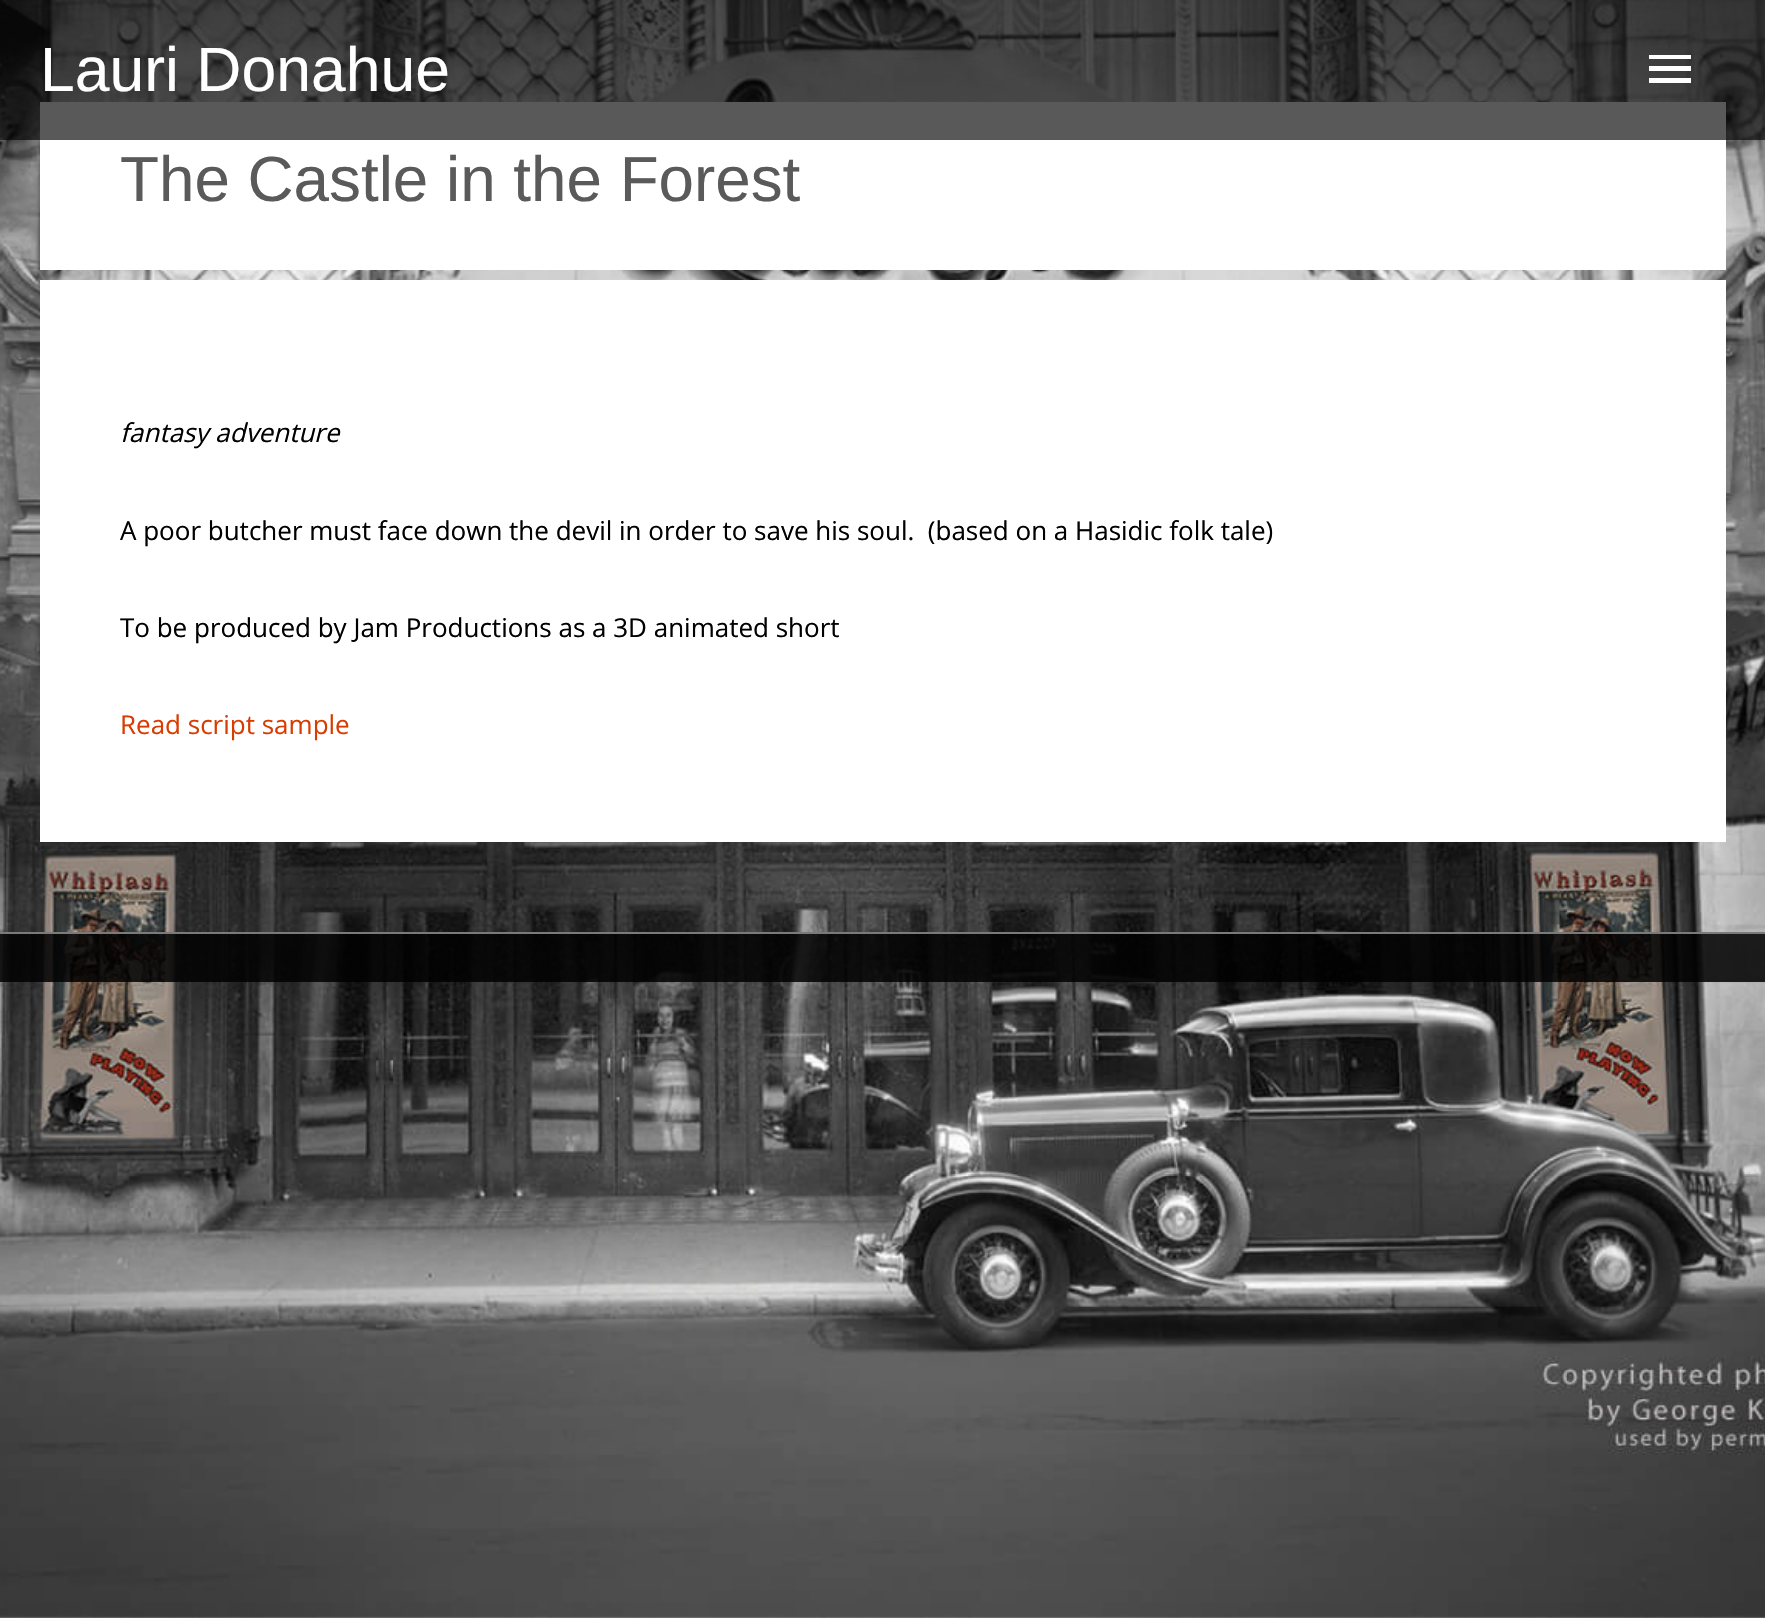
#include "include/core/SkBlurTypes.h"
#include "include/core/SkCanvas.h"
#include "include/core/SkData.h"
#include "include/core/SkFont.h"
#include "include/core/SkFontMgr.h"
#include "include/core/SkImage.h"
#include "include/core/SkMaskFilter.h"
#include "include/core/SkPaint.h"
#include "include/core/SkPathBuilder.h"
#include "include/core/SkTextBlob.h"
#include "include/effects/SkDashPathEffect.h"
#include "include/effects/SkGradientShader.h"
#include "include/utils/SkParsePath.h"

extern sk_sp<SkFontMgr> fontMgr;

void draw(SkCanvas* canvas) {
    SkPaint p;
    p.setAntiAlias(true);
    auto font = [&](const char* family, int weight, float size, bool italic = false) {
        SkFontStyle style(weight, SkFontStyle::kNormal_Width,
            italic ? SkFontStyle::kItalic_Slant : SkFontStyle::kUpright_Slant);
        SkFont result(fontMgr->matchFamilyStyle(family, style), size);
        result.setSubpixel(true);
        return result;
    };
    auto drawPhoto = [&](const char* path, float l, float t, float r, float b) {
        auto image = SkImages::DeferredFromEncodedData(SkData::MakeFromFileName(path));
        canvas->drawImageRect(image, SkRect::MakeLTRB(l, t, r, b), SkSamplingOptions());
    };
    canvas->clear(0xFFFFFFFF);
    drawPhoto("media/1.png", 0, 0, 1765, 1618);
    p.setColor(0xFFFFFFFF);
    canvas->drawRect(SkRect::MakeLTRB(40, 102, 1726, 270), p);
    p.setColor(0xA6000000);
    canvas->drawRect(SkRect::MakeLTRB(0, 0, 1765, 140), p);
    auto font1 = font("Liberation Sans", 400, 62.5f);
    p.setColor(0xFFFFFFFF);
    canvas->drawString("Lauri Donahue", 40, 91, font1, p);
    canvas->drawPath(SkPathBuilder().moveTo(1649, 55).lineTo(1691, 55).lineTo(1691, 59).lineTo(1649, 59).close().moveTo(1649, 71).lineTo(1649, 66).lineTo(1691, 66).lineTo(1691, 71).close().moveTo(1649, 83).lineTo(1649, 78).lineTo(1691, 78).lineTo(1691, 83).close().detach(), p);
    auto font2 = font("Liberation Sans", 400, 63.75f);
    p.setColor(0xFF5A5A5A);
    canvas->drawString("The Castle in the Forest", 120, 201, font2, p);
    p.setColor(0xFFFFFFFF);
    canvas->drawRect(SkRect::MakeLTRB(40, 280, 1726, 842), p);
    auto font3 = font("Open Sans", 400, 26, true);
    p.setColor(0xFF000000);
    canvas->drawString("fantasy adventure", 120, 442, font3, p);
    auto font4 = font("Open Sans", 400, 26);
    canvas->drawString("A poor butcher must face down the devil in order to save his soul.  (based on a Hasidic folk tale)", 120, 540, font4, p);
    canvas->drawString("To be produced by Jam Productions as a 3D animated short", 120, 637, font4, p);
    p.setColor(0xFFD83C00);
    canvas->drawString("Read script sample", 120, 734, font4, p);
    p.setColor(0xFF7A7A7A);
    canvas->drawRect(SkRect::MakeLTRB(0, 932, 1765, 934), p);
    p.setColor(0xD9000000);
    canvas->drawRect(SkRect::MakeLTRB(0, 934, 1765, 982), p);
}
